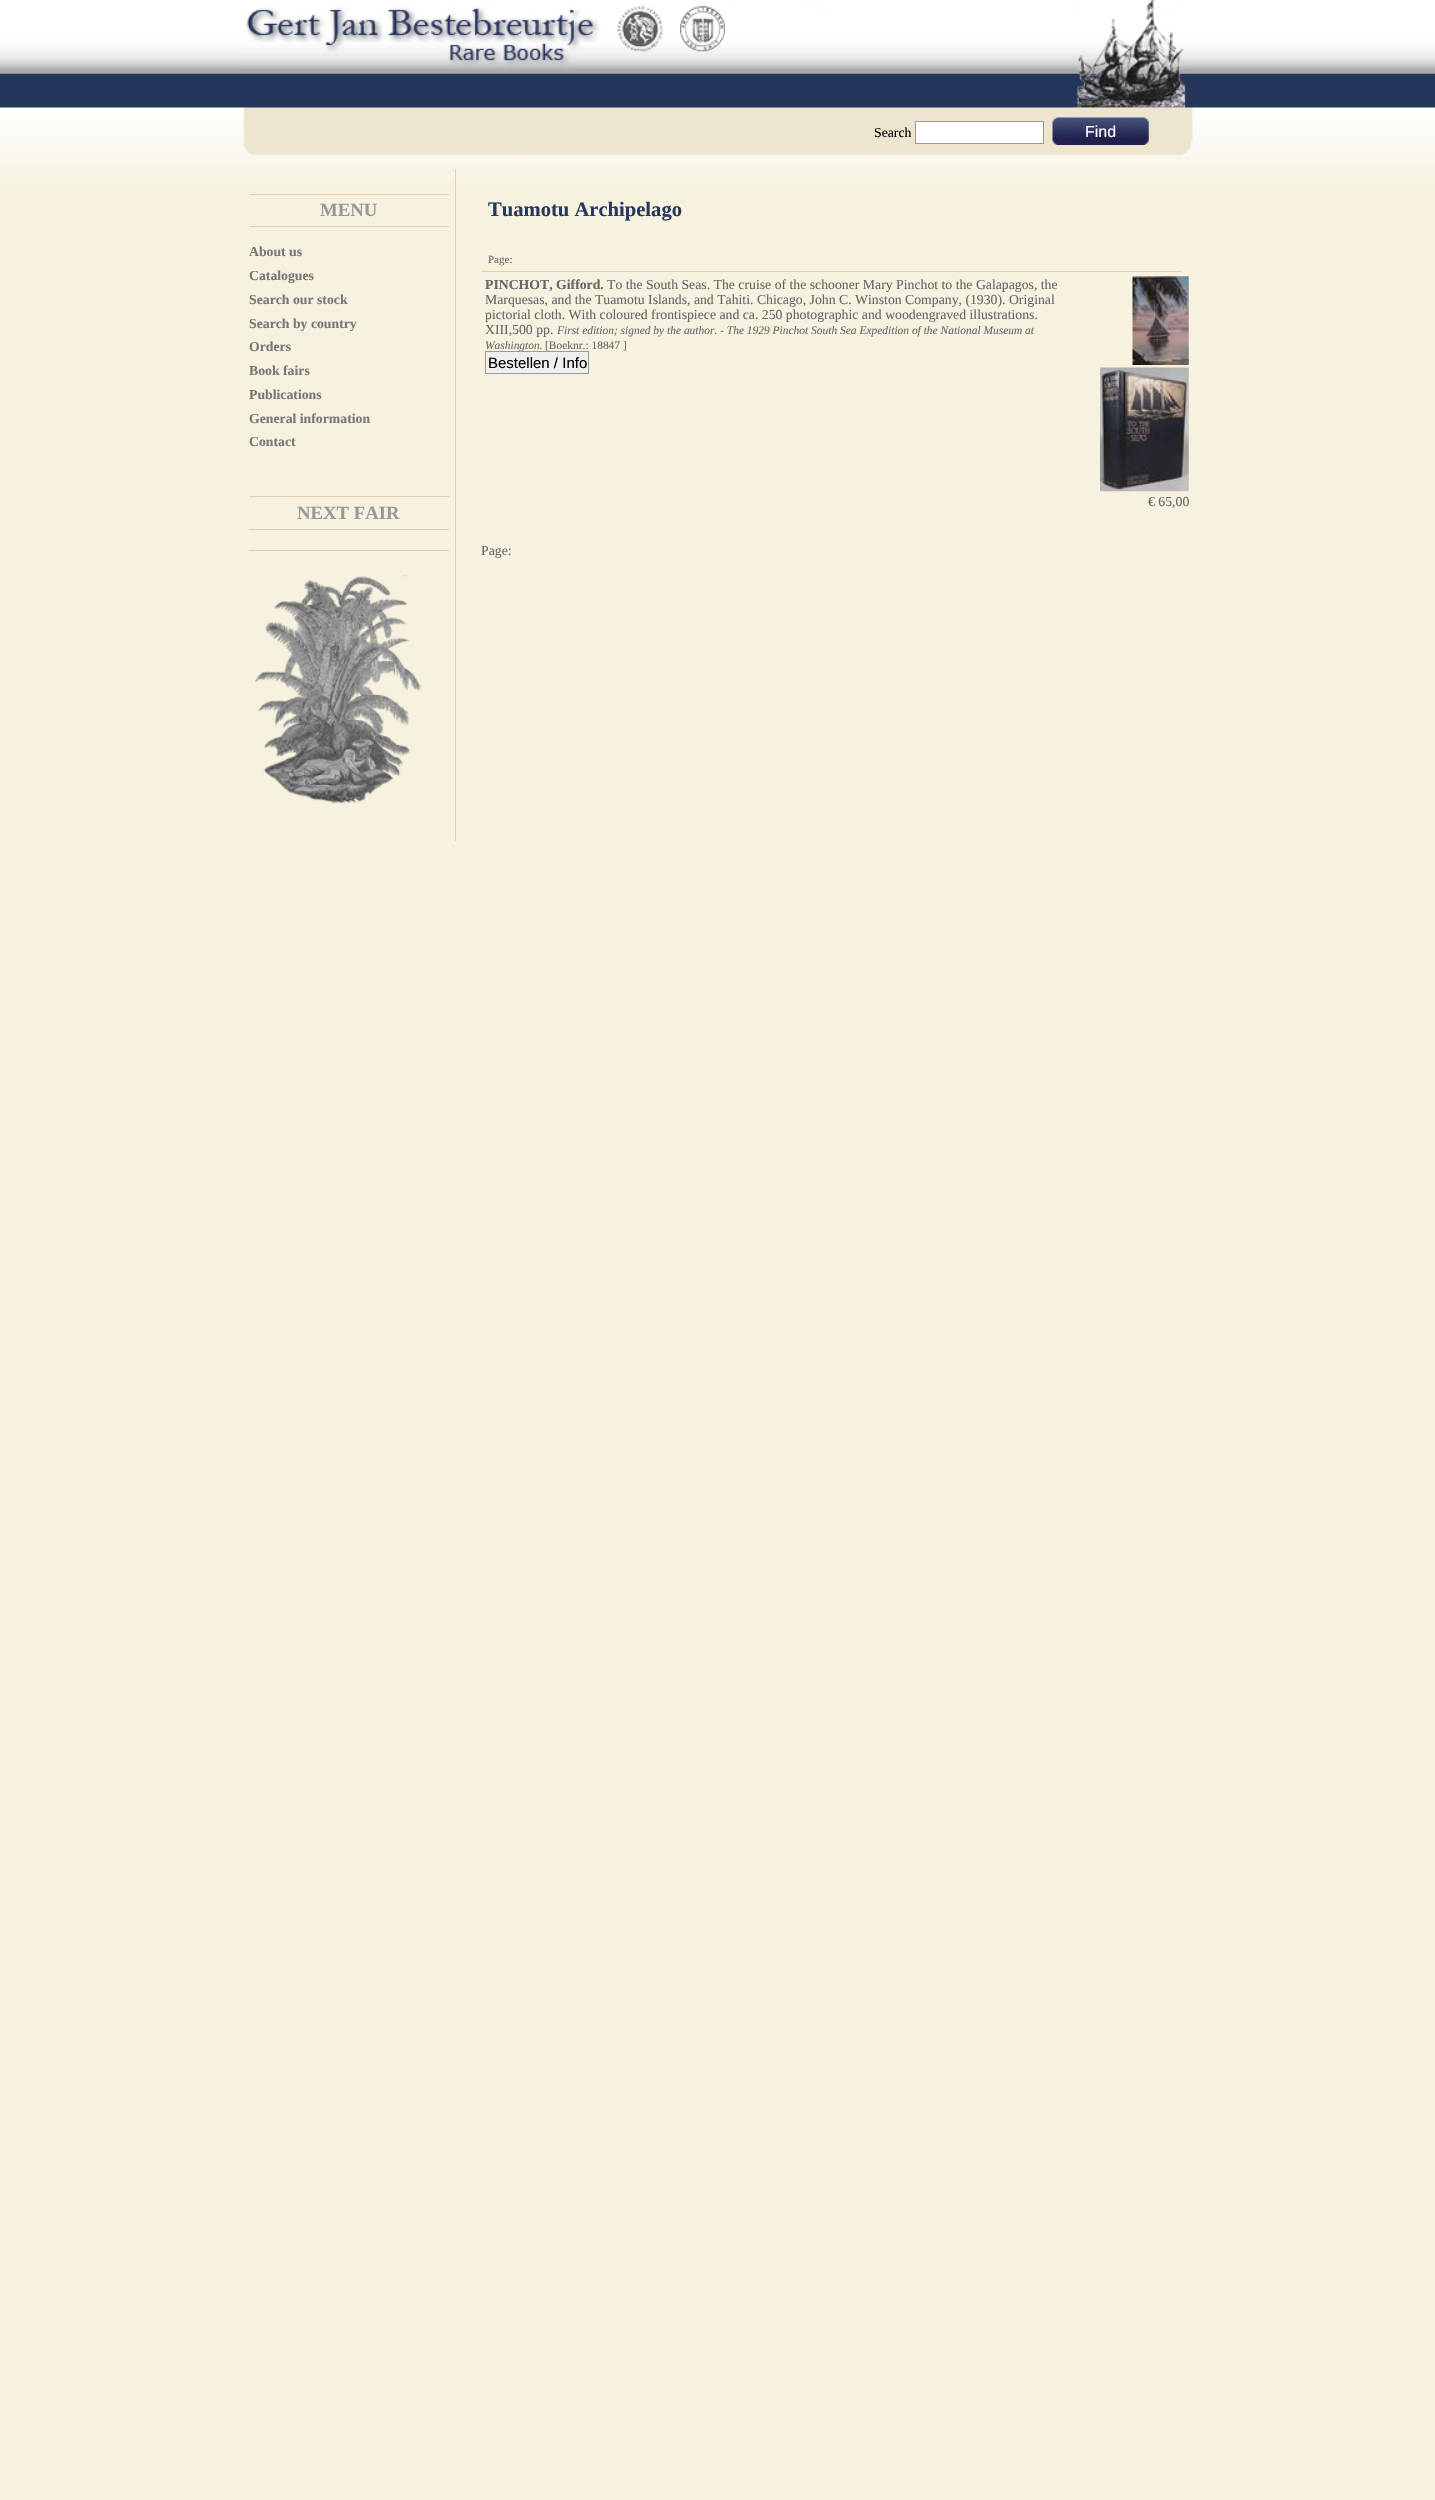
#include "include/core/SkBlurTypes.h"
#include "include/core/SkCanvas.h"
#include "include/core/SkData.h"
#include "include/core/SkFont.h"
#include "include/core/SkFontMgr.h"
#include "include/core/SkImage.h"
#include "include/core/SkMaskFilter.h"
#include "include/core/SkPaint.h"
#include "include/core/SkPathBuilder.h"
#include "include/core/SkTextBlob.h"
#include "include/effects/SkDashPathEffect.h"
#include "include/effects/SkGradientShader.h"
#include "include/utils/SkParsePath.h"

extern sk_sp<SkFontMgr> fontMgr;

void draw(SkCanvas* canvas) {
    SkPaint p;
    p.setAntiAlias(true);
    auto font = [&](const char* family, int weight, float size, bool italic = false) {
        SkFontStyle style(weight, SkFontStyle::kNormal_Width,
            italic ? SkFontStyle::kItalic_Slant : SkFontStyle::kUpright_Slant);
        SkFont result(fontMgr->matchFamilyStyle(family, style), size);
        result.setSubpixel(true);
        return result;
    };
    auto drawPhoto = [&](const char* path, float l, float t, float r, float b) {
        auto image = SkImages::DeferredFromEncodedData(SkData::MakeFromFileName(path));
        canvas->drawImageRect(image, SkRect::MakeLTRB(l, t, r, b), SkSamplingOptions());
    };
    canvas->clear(0xFFF7F2DF);
    drawPhoto("media/1.png", 0, 0, 1435, 187);
    drawPhoto("media/2.png", 243, 0, 1193, 156);
    drawPhoto("media/3.png", 617, 6, 663, 52);
    drawPhoto("media/4.png", 680, 6, 725, 52);
    auto font1 = font("Liberation Serif", 400, 13.75f);
    p.setColor(0xFF000000);
    canvas->drawString("Search", 874, 137, font1, p);
    p.setColor(0xFFFFFFFF);
    canvas->drawRect(SkRect::MakeLTRB(915.5f, 121.5f, 1043.5f, 143.5f), p);
    p.setStyle(SkPaint::kStroke_Style);
    p.setStrokeWidth(1);
    p.setColor(0xFF999999);
    canvas->drawRect(SkRect::MakeLTRB(915.5f, 121.5f, 1043.5f, 143.5f), p);
    drawPhoto("media/5.png", 1052, 117, 1149, 145);
    auto font2 = font("Liberation Sans", 400, 16);
    p.setStyle(SkPaint::kFill_Style);
    p.setColor(0xFFFFFFFF);
    canvas->drawString("Find", 1085, 137, font2, p);
    {
        const struct { float l, t, r, b; SkColor color; } items[] = {
            {455, 169, 456, 841, 0xFFE1D0B2},
            {249, 194, 449, 195, 0xFFE1D0B2},
            {249, 226, 449, 227, 0xFFE1D0B2},
        };
        for (auto [l, t, r, b, color] : items) {
            p.setColor(color);
            canvas->drawRect(SkRect::MakeLTRB(l, t, r, b), p);
        }
    }
    auto font3 = font("Liberation Serif", 700, 18.75f);
    p.setColor(0xFF999999);
    canvas->drawString("MENU", 320, 216, font3, p);
    auto font4 = font("Liberation Serif", 700, 13.75f);
    p.setColor(0xFF777777);
    {
        const struct { const char* s; float x, y; } items[] = {
            {"About us", 249, 256},
            {"Catalogues", 249, 280},
            {"Search our stock", 249, 304},
            {"Search by country", 249, 328},
            {"Orders", 249, 351},
            {"Book fairs", 249, 375},
            {"Publications", 249, 399},
            {"General information", 249, 423},
            {"Contact", 249, 446},
        };
        for (auto [s, x, y] : items) {
            canvas->drawString(s, x, y, font4, p);
        }
    }
    p.setColor(0xFFE1D0B2);
    canvas->drawRect(SkRect::MakeLTRB(249, 496, 449, 497), p);
    canvas->drawRect(SkRect::MakeLTRB(249, 529, 449, 530), p);
    p.setColor(0xFF999999);
    canvas->drawString("NEXT FAIR", 297, 519, font3, p);
    p.setColor(0xFFE1D0B2);
    canvas->drawRect(SkRect::MakeLTRB(249, 550, 449, 551), p);
    drawPhoto("media/6.png", 255, 575, 422, 804);
    canvas->drawRect(SkRect::MakeLTRB(481, 271, 1181, 272), p);
    auto font5 = font("Liberation Serif", 700, 20.6f);
    p.setColor(0xFF27385E);
    canvas->drawString("Tuamotu Archipelago", 488, 216, font5, p);
    auto font6 = font("Liberation Serif", 400, 11);
    p.setColor(0xFF666666);
    canvas->drawString("Page:", 488, 263, font6, p);
    canvas->drawString("PINCHOT, Gifford.", 485, 289, font4, p);
    {
        const struct { const char* s; float x, y; } items[] = {
            {"To the South Seas. The cruise of the schooner Mary Pinchot to the Galapagos, the", 607, 289},
            {"Marquesas, and the Tuamotu Islands, and Tahiti. Chicago, John C. Winston Company, (1930). Original", 485, 304},
            {"pictorial cloth. With coloured frontispiece and ca. 250 photographic and woodengraved illustrations.", 485, 319},
            {"XIII,500 pp.", 485, 334},
        };
        for (auto [s, x, y] : items) {
            canvas->drawString(s, x, y, font1, p);
        }
    }
    auto font7 = font("Liberation Serif", 400, 11.45f, true);
    canvas->drawString("First edition; signed by the author. - The 1929 Pinchot South Sea Expedition of the National Museum at", 557, 334, font7, p);
    canvas->drawString("Washington.", 485, 349, font7, p);
    auto font8 = font("Liberation Serif", 400, 11.45f);
    canvas->drawString("[Boeknr.: 18847 ]", 545, 349, font8, p);
    p.setColor(0xFFEFEFEF);
    canvas->drawRect(SkRect::MakeLTRB(485.5f, 351.5f, 588.5f, 373.5f), p);
    p.setStyle(SkPaint::kStroke_Style);
    p.setColor(0xFF999999);
    canvas->drawRect(SkRect::MakeLTRB(485.5f, 351.5f, 588.5f, 373.5f), p);
    auto font9 = font("Liberation Sans", 400, 15);
    p.setStyle(SkPaint::kFill_Style);
    p.setColor(0xFF000000);
    canvas->drawString("Bestellen / Info", 488, 368, font9, p);
    drawPhoto("media/7.png", 1132, 276, 1189, 365);
    drawPhoto("media/8.png", 1100, 367, 1189, 492);
    p.setColor(0xFF666666);
    canvas->drawString("€ 65,00", 1148, 506, font1, p);
    canvas->drawString("Page:", 481, 555, font1, p);
}
